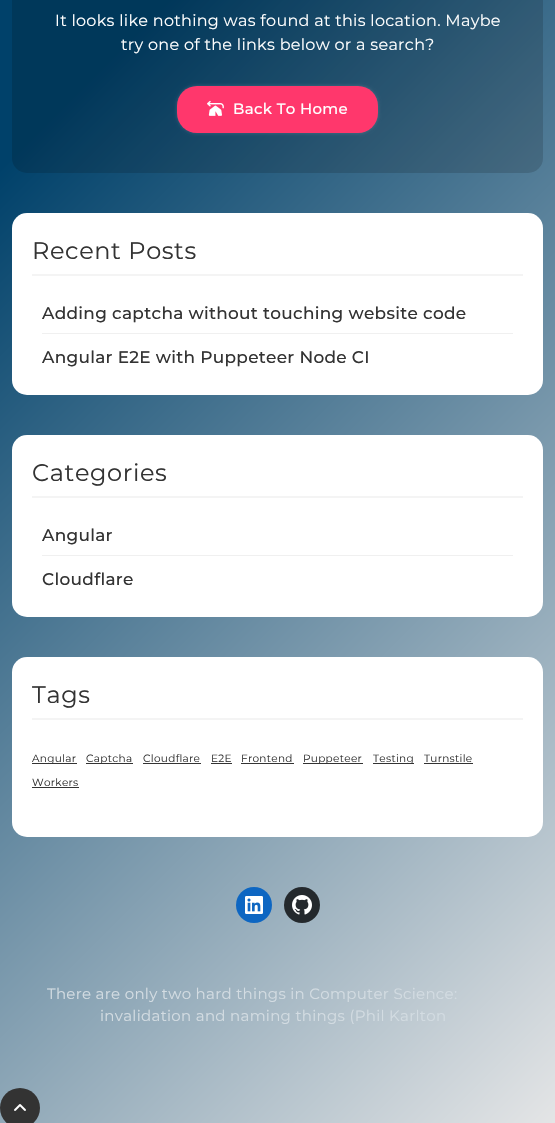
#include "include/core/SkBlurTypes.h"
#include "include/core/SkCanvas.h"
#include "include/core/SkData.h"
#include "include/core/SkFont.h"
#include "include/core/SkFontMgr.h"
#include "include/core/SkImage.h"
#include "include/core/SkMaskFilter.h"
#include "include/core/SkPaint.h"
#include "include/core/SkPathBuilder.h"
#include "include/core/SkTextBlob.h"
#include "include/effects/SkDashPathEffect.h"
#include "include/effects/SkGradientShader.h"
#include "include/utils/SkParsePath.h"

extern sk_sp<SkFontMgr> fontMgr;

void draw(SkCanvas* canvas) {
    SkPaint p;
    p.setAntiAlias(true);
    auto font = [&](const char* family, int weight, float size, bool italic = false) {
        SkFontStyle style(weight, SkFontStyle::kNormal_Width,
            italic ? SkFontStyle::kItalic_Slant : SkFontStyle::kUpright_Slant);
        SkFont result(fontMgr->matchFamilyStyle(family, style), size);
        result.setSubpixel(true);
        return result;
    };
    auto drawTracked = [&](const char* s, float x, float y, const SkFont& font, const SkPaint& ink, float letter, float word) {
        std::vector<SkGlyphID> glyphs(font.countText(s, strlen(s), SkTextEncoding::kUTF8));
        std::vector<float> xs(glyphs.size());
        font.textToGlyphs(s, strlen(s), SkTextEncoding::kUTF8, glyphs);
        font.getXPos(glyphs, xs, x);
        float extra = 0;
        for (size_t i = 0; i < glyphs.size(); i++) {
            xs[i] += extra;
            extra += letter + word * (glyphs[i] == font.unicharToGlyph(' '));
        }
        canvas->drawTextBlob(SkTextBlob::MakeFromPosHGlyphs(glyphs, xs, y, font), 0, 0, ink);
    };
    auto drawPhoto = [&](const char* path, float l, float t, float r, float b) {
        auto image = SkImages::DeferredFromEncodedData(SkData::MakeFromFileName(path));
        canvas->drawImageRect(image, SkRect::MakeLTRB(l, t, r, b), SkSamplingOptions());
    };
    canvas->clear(0xFFFFFFFF);
    {
        const SkColor colors[] = {0xFF00416A, 0xFFE4E5E6};
        const float stops[] = {0.1f, 1};
        const SkPoint ends[] = {{-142, 142}, {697, 981}};
        p.setShader(SkGradientShader::MakeLinear(ends, colors, stops, 2, SkTileMode::kClamp));
        p.setAlpha(255);
    }
    canvas->drawRect(SkRect::MakeLTRB(0, 0, 555, 1123), p);
    p.setShader(nullptr);
    p.setColor(0x26000000);
    canvas->drawRoundRect(SkRect::MakeLTRB(12, -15, 543, 173), 15, 15, p);
    auto font1 = font("Montserrat", 400, 16);
    p.setColor(0xFFFFFFFF);
    drawTracked("It looks like nothing was found at this location. Maybe", 55, 26, font1, p, 0.3f, 0);
    drawTracked("try one of the links below or a search?", 121, 50, font1, p, 0.3f, 0);
    p.setColor(0x1FE0E0E0);
    p.setMaskFilter(SkMaskFilter::MakeBlur(kNormal_SkBlurStyle, 1.5f));
    canvas->drawRoundRect(SkRect::MakeLTRB(176, 85, 379, 134), 21, 21, p);
    p.setMaskFilter(nullptr);
    p.setColor(0xFFFF376C);
    canvas->drawRoundRect(SkRect::MakeLTRB(177, 86, 378, 133), 20, 20, p);
    drawPhoto("media/1.png", 207, 100, 224, 116);
    auto font2 = font("Montserrat", 500, 15);
    p.setColor(0xFFFFFFFF);
    drawTracked("Back To Home", 233, 114, font2, p, 0.3f, 0);
    canvas->drawRoundRect(SkRect::MakeLTRB(12, 213, 543, 395), 15, 15, p);
    p.setColor(0xFFF4F4F4);
    canvas->drawRect(SkRect::MakeLTRB(32, 274, 523, 276), p);
    auto font3 = font("Montserrat", 400, 24);
    p.setColor(0xFF333333);
    drawTracked("Recent Posts", 32, 259, font3, p, 0.6f, 0);
    p.setColor(0xFFF0F0F0);
    canvas->drawRect(SkRect::MakeLTRB(42, 333, 513, 334), p);
    auto font4 = font("Montserrat", 500, 16.9f);
    p.setColor(0xFF333333);
    drawTracked("Adding captcha without touching website code", 42, 319, font4, p, 0.3f, 0);
    drawTracked("Angular E2E with Puppeteer Node CI", 42, 363, font4, p, 0.3f, 0);
    p.setColor(0xFFFFFFFF);
    canvas->drawRoundRect(SkRect::MakeLTRB(12, 435, 543, 617), 15, 15, p);
    p.setColor(0xFFF4F4F4);
    canvas->drawRect(SkRect::MakeLTRB(32, 496, 523, 498), p);
    p.setColor(0xFF333333);
    drawTracked("Categories", 32, 481, font3, p, 0.6f, 0);
    p.setColor(0xFFF0F0F0);
    canvas->drawRect(SkRect::MakeLTRB(42, 555, 513, 556), p);
    p.setColor(0xFF333333);
    drawTracked("Angular", 42, 541, font4, p, 0.3f, 0);
    drawTracked("Cloudflare", 42, 585, font4, p, 0.3f, 0);
    p.setColor(0xFFFFFFFF);
    canvas->drawRoundRect(SkRect::MakeLTRB(12, 657, 543, 837), 15, 15, p);
    p.setColor(0xFFF4F4F4);
    canvas->drawRect(SkRect::MakeLTRB(32, 718, 523, 720), p);
    p.setColor(0xFF333333);
    drawTracked("Tags", 32, 703, font3, p, 0.6f, 0);
    canvas->drawRect(SkRect::MakeLTRB(32, 763, 77, 764), p);
    auto font5 = font("Montserrat", 400, 10.5f);
    drawTracked("Angular", 32, 762, font5, p, 0.3f, 0);
    canvas->drawRect(SkRect::MakeLTRB(86, 763, 133, 764), p);
    drawTracked("Captcha", 86, 762, font5, p, 0.3f, 0);
    drawTracked("Cloudflare", 143, 762, font5, p, 0.3f, 0);
    canvas->drawRect(SkRect::MakeLTRB(143, 763, 201, 764), p);
    drawTracked("E2E", 211, 762, font5, p, 0.3f, 0);
    canvas->drawRect(SkRect::MakeLTRB(211, 763, 232, 764), p);
    drawTracked("Frontend", 241, 762, font5, p, 0.3f, 0);
    canvas->drawRect(SkRect::MakeLTRB(241, 763, 294, 764), p);
    canvas->drawRect(SkRect::MakeLTRB(303, 763, 363, 764), p);
    drawTracked("Puppeteer", 303, 762, font5, p, 0.3f, 0);
    canvas->drawRect(SkRect::MakeLTRB(373, 763, 414, 764), p);
    drawTracked("Testing", 373, 762, font5, p, 0.3f, 0);
    drawTracked("Turnstile", 424, 762, font5, p, 0.3f, 0);
    canvas->drawRect(SkRect::MakeLTRB(424, 763, 473, 764), p);
    drawTracked("Workers", 32, 786, font5, p, 0.3f, 0);
    canvas->drawRect(SkRect::MakeLTRB(32, 787, 79, 788), p);
    p.setColor(0xFF0D66C2);
    canvas->drawCircle(254, 905, 18, p);
    drawPhoto("media/2.png", 245, 896, 263, 914);
    p.setColor(0xFF24292D);
    canvas->drawCircle(302, 905, 18, p);
    drawPhoto("media/3.png", 292, 895, 312, 915);
    auto font6 = font("Montserrat", 400, 15);
    p.setColor(0xFFD3DCE2);
    drawTracked("There are only two hard things in Computer Science:", 47, 999, font6, p, 0.3f, 0);
    drawTracked("invalidation and naming things (Phil Karlton", 100, 1021, font6, p, 0.3f, 0);
    p.setColor(0xFF333333);
    canvas->drawCircle(20, 1108, 20, p);
    drawPhoto("media/4.png", 14, 1104, 26, 1111);
}
